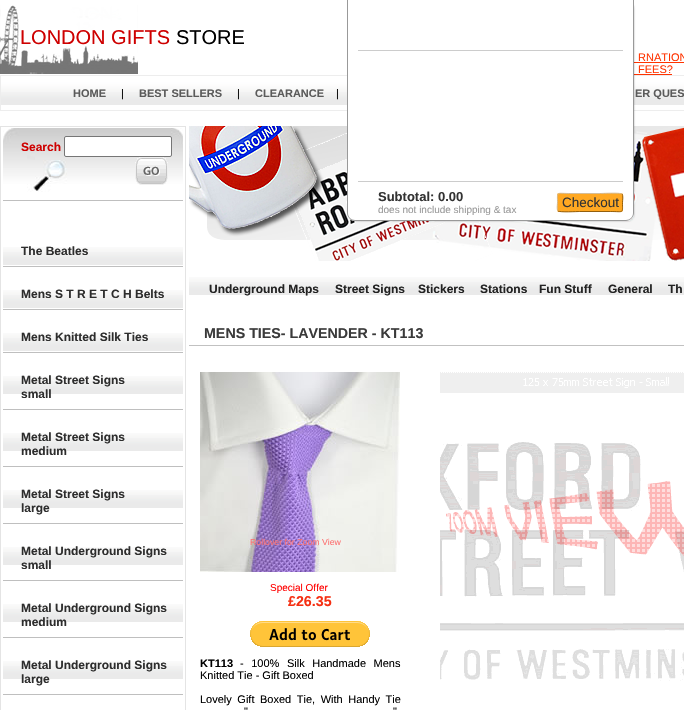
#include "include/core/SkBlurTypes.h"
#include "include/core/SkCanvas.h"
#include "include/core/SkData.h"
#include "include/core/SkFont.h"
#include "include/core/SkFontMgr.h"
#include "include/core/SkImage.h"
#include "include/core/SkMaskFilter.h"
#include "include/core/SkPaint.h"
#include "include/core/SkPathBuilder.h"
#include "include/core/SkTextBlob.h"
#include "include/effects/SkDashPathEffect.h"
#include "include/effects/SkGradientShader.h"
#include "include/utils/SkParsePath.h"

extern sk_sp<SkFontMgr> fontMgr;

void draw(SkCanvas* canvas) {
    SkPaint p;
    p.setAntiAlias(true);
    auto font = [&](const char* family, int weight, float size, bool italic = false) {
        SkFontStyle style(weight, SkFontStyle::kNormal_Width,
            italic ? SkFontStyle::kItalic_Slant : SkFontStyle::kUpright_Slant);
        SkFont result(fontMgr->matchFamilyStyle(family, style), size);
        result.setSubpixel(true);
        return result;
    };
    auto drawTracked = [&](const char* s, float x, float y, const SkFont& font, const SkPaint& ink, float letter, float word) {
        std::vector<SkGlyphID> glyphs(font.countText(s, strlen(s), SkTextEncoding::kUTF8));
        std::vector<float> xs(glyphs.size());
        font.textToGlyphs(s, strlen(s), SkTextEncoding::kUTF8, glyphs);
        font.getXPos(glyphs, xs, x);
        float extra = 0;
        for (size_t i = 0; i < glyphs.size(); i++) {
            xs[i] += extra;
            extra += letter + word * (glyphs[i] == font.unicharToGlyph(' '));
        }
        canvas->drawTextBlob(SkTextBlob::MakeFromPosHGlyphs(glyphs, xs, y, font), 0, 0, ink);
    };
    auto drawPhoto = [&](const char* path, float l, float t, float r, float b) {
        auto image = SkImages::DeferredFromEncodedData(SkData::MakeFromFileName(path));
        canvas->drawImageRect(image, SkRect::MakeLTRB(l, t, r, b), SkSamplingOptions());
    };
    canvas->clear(0xFFFFFFFF);
    drawPhoto("media/1.png", 0, 5, 138, 74);
    auto font1 = font("Liberation Sans", 400, 20);
    p.setColor(0xFFCE0000);
    canvas->drawString("LONDON GIFTS", 20, 44, font1, p);
    p.setColor(0xFF000000);
    canvas->drawString("STORE", 176, 44, font1, p);
    auto font2 = font("Liberation Sans", 400, 11);
    p.setColor(0xFFFF3300);
    canvas->drawString("RNATION", 638, 61, font2, p);
    canvas->drawRect(SkRect::MakeLTRB(634, 62, 684, 63), p);
    canvas->drawString("FEES?", 638, 73, font2, p);
    canvas->drawRect(SkRect::MakeLTRB(634, 74, 672, 75), p);
    p.setColor(0xFFEDEDED);
    canvas->drawRect(SkRect::MakeLTRB(0, 75, 684, 111), p);
    drawPhoto("media/2.png", 1, 76, 684, 110);
    auto font3 = font("Liberation Sans", 700, 11);
    p.setColor(0xFF5B5B5B);
    canvas->drawString("HOME", 73, 97, font3, p);
    p.setColor(0xFF000000);
    canvas->drawString("|", 121, 97, font2, p);
    p.setColor(0xFF5B5B5B);
    canvas->drawString("BEST SELLERS", 139, 97, font3, p);
    p.setColor(0xFF000000);
    canvas->drawString("|", 237, 97, font2, p);
    p.setColor(0xFF5B5B5B);
    canvas->drawString("CLEARANCE", 255, 97, font3, p);
    p.setColor(0xFF000000);
    canvas->drawString("|", 336, 97, font2, p);
    p.setColor(0xFF5B5B5B);
    canvas->drawString("ER QUES", 635, 97, font3, p);
    p.setColor(0xFFE4E4E4);
    canvas->drawRect(SkRect::MakeLTRB(0, 126, 186, 710), p);
    p.setColor(0xFFFFFFFF);
    canvas->drawRect(SkRect::MakeLTRB(1, 127, 185, 710), p);
    drawPhoto("media/3.png", 3, 128, 183, 192);
    p.setColor(0xFFBFBFBF);
    canvas->drawRect(SkRect::MakeLTRB(3, 200, 183, 201), p);
    auto font4 = font("Liberation Sans", 700, 12);
    p.setColor(0xFFCE0000);
    canvas->drawString("Search", 21, 151, font4, p);
    p.setColor(0xFFFFFFFF);
    canvas->drawRoundRect(SkRect::MakeLTRB(64.5f, 136.5f, 171.5f, 156.5f), 1.5f, 1.5f, p);
    p.setStyle(SkPaint::kStroke_Style);
    p.setStrokeWidth(1);
    p.setColor(0xFF767676);
    canvas->drawRoundRect(SkRect::MakeLTRB(64.5f, 136.5f, 171.5f, 156.5f), 1.5f, 1.5f, p);
    drawPhoto("media/4.png", 135, 157, 168, 185);
    drawPhoto("media/5.png", 3, 247, 183, 265);
    p.setStyle(SkPaint::kFill_Style);
    p.setColor(0xFFBFBFBF);
    canvas->drawRect(SkRect::MakeLTRB(3, 266, 183, 267), p);
    p.setColor(0xFF2D2D2D);
    canvas->drawString("The Beatles", 21, 255, font4, p);
    drawPhoto("media/5.png", 3, 290, 183, 308);
    p.setColor(0xFFBFBFBF);
    canvas->drawRect(SkRect::MakeLTRB(3, 309, 183, 310), p);
    p.setColor(0xFF2D2D2D);
    canvas->drawString("Mens S T R E T C H Belts", 21, 298, font4, p);
    drawPhoto("media/5.png", 3, 333, 183, 351);
    p.setColor(0xFFBFBFBF);
    canvas->drawRect(SkRect::MakeLTRB(3, 352, 183, 353), p);
    p.setColor(0xFF2D2D2D);
    canvas->drawString("Mens Knitted Silk Ties", 21, 341, font4, p);
    drawPhoto("media/5.png", 3, 376, 183, 394);
    p.setColor(0xFFBFBFBF);
    canvas->drawRect(SkRect::MakeLTRB(3, 409, 183, 410), p);
    p.setColor(0xFF2D2D2D);
    canvas->drawString("Metal Street Signs", 21, 384, font4, p);
    canvas->drawString("small", 21, 398, font4, p);
    drawPhoto("media/5.png", 3, 433, 183, 451);
    p.setColor(0xFFBFBFBF);
    canvas->drawRect(SkRect::MakeLTRB(3, 466, 183, 467), p);
    p.setColor(0xFF2D2D2D);
    canvas->drawString("Metal Street Signs", 21, 441, font4, p);
    canvas->drawString("medium", 21, 455, font4, p);
    drawPhoto("media/5.png", 3, 490, 183, 508);
    p.setColor(0xFFBFBFBF);
    canvas->drawRect(SkRect::MakeLTRB(3, 523, 183, 524), p);
    p.setColor(0xFF2D2D2D);
    canvas->drawString("Metal Street Signs", 21, 498, font4, p);
    canvas->drawString("large", 21, 512, font4, p);
    drawPhoto("media/5.png", 3, 547, 183, 565);
    p.setColor(0xFFBFBFBF);
    canvas->drawRect(SkRect::MakeLTRB(3, 580, 183, 581), p);
    p.setColor(0xFF2D2D2D);
    canvas->drawString("Metal Underground Signs", 21, 555, font4, p);
    canvas->drawString("small", 21, 569, font4, p);
    drawPhoto("media/5.png", 3, 604, 183, 622);
    p.setColor(0xFFBFBFBF);
    canvas->drawRect(SkRect::MakeLTRB(3, 637, 183, 638), p);
    p.setColor(0xFF2D2D2D);
    canvas->drawString("Metal Underground Signs", 21, 612, font4, p);
    canvas->drawString("medium", 21, 626, font4, p);
    drawPhoto("media/5.png", 3, 661, 183, 679);
    p.setColor(0xFFBFBFBF);
    canvas->drawRect(SkRect::MakeLTRB(3, 694, 183, 695), p);
    p.setColor(0xFF2D2D2D);
    canvas->drawString("Metal Underground Signs", 21, 669, font4, p);
    canvas->drawString("large", 21, 683, font4, p);
    drawPhoto("media/6.png", 189, 126, 684, 261);
    drawPhoto("media/7.png", 189, 277, 684, 295);
    p.setColor(0xFF222222);
    {
        const struct { const char* s; float x, y; } items[] = {
            {"Underground Maps", 209, 293},
            {"Street Signs", 335, 293},
            {"Stickers", 418, 293},
            {"Stations", 480, 293},
            {"Fun Stuff", 539, 293},
            {"General", 608, 293},
            {"Th", 668, 293},
        };
        for (auto [s, x, y] : items) {
            canvas->drawString(s, x, y, font4, p);
        }
    }
    p.setColor(0xFFC1C1C1);
    canvas->drawRect(SkRect::MakeLTRB(189, 345, 684, 346), p);
    auto font5 = font("Liberation Sans", 700, 14.25f);
    p.setColor(0xFF3A3A3A);
    canvas->drawString("MENS TIES- LAVENDER - KT113", 204, 338, font5, p);
    drawPhoto("media/8.png", 440, 372, 684, 681);
    drawPhoto("media/9.png", 200, 372, 400, 572);
    auto font6 = font("Liberation Sans", 400, 8.75f);
    p.setColor(0xFFFD7373);
    canvas->drawString("Rollover for Zoom View", 250, 545, font6, p);
    auto font7 = font("Liberation Sans", 400, 10);
    p.setColor(0xFFFF0000);
    canvas->drawString("Special Offer", 270, 591, font7, p);
    p.setColor(0xFFF52F12);
    canvas->drawString("£26.35", 288, 606, font5, p);
    drawPhoto("media/10.png", 250, 621, 370, 647);
    p.setColor(0xFF000000);
    canvas->drawString("KT113", 200, 667, font3, p);
    drawTracked("- 100% Silk Handmade Mens", 240, 667, font2, p, 0, 4.5f);
    canvas->drawString("Knitted Tie - Gift Boxed", 200, 679, font2, p);
    drawTracked("Lovely Gift Boxed Tie, With Handy Tie", 200, 703, font2, p, 0, 2.5f);
    drawTracked("\"", 244, 715, font2, p, 0, 3);
    drawTracked("\"", 393, 715, font2, p, 0, 3);
    p.setColor(0x1A000000);
    p.setMaskFilter(SkMaskFilter::MakeBlur(kNormal_SkBlurStyle, 0.5f));
    canvas->drawRoundRect(SkRect::MakeLTRB(348, 1, 635, 222), 8, 8, p);
    p.setMaskFilter(nullptr);
    p.setColor(0xFFFFFFFF);
    canvas->drawPath(SkPathBuilder().moveTo(347, 0).lineTo(634, 0).lineTo(634, 213).cubicTo(634, 217.5f, 630.5f, 221, 626, 221).lineTo(355, 221).cubicTo(350.5f, 221, 347, 217.5f, 347, 213).close().detach(), p);
    p.setColor(0xFF999999);
    canvas->drawPath(SkPathBuilder(SkPathFillType::kEvenOdd).moveTo(347, 0).lineTo(634, 0).lineTo(634, 213).cubicTo(634, 217, 630, 221, 626, 221).lineTo(355, 221).cubicTo(351, 221, 347, 217, 347, 213).close().moveTo(348, 0).lineTo(633, 0).lineTo(633, 213).cubicTo(633, 217, 630, 220, 626, 220).lineTo(355, 220).cubicTo(351, 220, 348, 217, 348, 213).close().detach(), p);
    p.setColor(0xFFCCCCCC);
    canvas->drawRect(SkRect::MakeLTRB(358, 50, 623, 51), p);
    canvas->drawRect(SkRect::MakeLTRB(358, 181, 623, 182), p);
    auto font8 = font("Liberation Sans", 700, 13);
    p.setColor(0xFF333333);
    canvas->drawString("Subtotal: 0.00", 378, 201, font8, p);
    p.setColor(0xFFFFA822);
    canvas->drawRoundRect(SkRect::MakeLTRB(557, 193, 623, 212), 2, 2, p);
    p.setStyle(SkPaint::kStroke_Style);
    p.setColor(0xFF935E0D);
    canvas->drawPath(SkPathBuilder().moveTo(622, 194).cubicTo(623.5f, 195.5f, 622.5f, 200.5f, 622.5f, 202.5f).cubicTo(622.5f, 214, 624, 211.5f, 610.5f, 211.5f).lineTo(579.5f, 211.5f).cubicTo(577.5f, 211.5f, 559.5f, 212.5f, 558, 211).detach(), p);
    p.setColor(0xFFD5BD98);
    canvas->drawPath(SkPathBuilder().moveTo(558, 211).cubicTo(556.5f, 209.5f, 557.5f, 204.5f, 557.5f, 202.5f).cubicTo(557.5f, 191, 556, 193.5f, 569.5f, 193.5f).lineTo(600.5f, 193.5f).cubicTo(602.5f, 193.5f, 620.5f, 192.5f, 622, 194).detach(), p);
    auto font9 = font("Liberation Sans", 400, 13.5f);
    p.setStyle(SkPaint::kFill_Style);
    p.setColor(0xFF333333);
    canvas->drawString("Checkout", 562, 207, font9, p);
    p.setColor(0xFF999999);
    canvas->drawString("does not include shipping & tax", 378, 213, font7, p);
}
